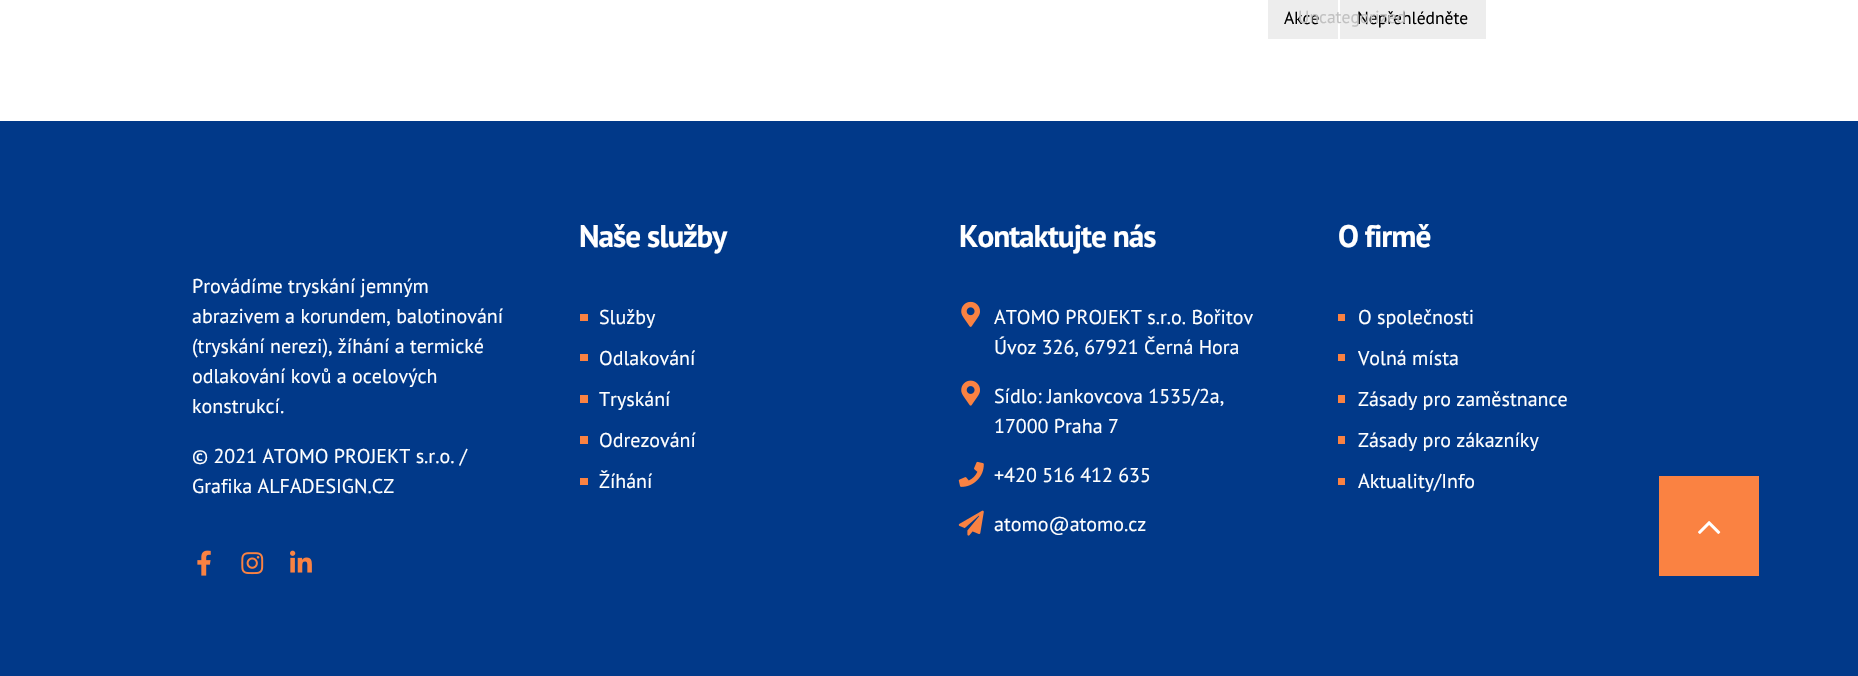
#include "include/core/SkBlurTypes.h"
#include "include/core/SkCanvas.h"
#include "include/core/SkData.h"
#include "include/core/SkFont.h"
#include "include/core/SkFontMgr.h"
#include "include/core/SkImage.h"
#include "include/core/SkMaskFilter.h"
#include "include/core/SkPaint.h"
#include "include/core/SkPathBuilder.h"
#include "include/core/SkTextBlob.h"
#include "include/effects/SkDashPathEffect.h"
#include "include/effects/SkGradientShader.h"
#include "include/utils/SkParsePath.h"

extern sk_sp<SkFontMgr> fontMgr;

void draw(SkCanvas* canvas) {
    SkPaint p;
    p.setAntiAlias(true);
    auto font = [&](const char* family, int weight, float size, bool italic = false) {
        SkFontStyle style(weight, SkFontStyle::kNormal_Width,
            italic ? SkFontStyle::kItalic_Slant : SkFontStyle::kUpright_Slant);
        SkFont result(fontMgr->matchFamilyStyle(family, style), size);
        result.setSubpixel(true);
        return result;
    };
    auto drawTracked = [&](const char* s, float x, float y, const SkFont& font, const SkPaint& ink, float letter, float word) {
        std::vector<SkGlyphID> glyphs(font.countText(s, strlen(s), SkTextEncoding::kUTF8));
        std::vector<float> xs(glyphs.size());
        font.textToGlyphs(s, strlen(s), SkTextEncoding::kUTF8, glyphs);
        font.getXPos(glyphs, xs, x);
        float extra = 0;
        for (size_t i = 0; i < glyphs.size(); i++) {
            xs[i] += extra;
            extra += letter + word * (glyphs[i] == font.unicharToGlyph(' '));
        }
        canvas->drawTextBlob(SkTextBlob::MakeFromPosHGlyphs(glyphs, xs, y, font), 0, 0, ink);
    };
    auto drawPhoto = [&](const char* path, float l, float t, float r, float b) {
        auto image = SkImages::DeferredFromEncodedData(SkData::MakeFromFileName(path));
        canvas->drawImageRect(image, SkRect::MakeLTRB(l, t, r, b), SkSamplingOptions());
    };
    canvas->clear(0xFFFFFFFF);
    p.setColor(0xFFEDEDED);
    canvas->drawRect(SkRect::MakeLTRB(1268, 0, 1338, 39), p);
    auto font1 = font("PT Sans", 400, 17.5f);
    p.setColor(0xFF000000);
    canvas->drawString("Akce", 1284, 24, font1, p);
    p.setColor(0xFFEDEDED);
    canvas->drawRect(SkRect::MakeLTRB(1340, 0, 1486, 39), p);
    p.setColor(0xFF000000);
    canvas->drawString("Nepřehlédněte", 1357, 24, font1, p);
    p.setColor(0xFFC1C1C1);
    canvas->drawString("Uncategorized", 1298, 23, font1, p);
    p.setColor(0xFF013989);
    canvas->drawRect(SkRect::MakeLTRB(0, 121, 1858, 676), p);
    auto font2 = font("PT Sans", 400, 20);
    p.setColor(0xFFFFFFFF);
    {
        const struct { const char* s; float x, y; } items[] = {
            {"Provádíme tryskání jemným", 192, 293},
            {"abrazivem a korundem, balotinování", 192, 323},
            {"(tryskání nerezi), žíhání a termické", 192, 353},
            {"odlakování kovů a ocelových", 192, 383},
            {"konstrukcí.", 192, 413},
            {"© 2021 ATOMO PROJEKT s.r.o. /", 192, 463},
            {"Grafika ALFADESIGN.CZ", 192, 493},
        };
        for (auto [s, x, y] : items) {
            canvas->drawString(s, x, y, font2, p);
        }
    }
    drawPhoto("media/1.png", 197, 550, 211, 576);
    drawPhoto("media/2.png", 241, 552, 264, 575);
    drawPhoto("media/3.png", 290, 550, 312, 573);
    auto font3 = font("PT Sans", 700, 31.25f);
    drawTracked("Naše služby", 579, 247, font3, p, -1, 0);
    p.setColor(0xFFFA8242);
    canvas->drawRect(SkRect::MakeLTRB(580, 314, 588, 321), p);
    p.setColor(0xFFFFFFFF);
    canvas->drawString("Služby", 599, 324, font2, p);
    p.setColor(0xFFFA8242);
    canvas->drawRect(SkRect::MakeLTRB(580, 354, 588, 361), p);
    p.setColor(0xFFFFFFFF);
    canvas->drawString("Odlakování", 599, 365, font2, p);
    p.setColor(0xFFFA8242);
    canvas->drawRect(SkRect::MakeLTRB(580, 395, 588, 403), p);
    p.setColor(0xFFFFFFFF);
    canvas->drawString("Tryskání", 599, 406, font2, p);
    p.setColor(0xFFFA8242);
    canvas->drawRect(SkRect::MakeLTRB(580, 436, 588, 444), p);
    p.setColor(0xFFFFFFFF);
    canvas->drawString("Odrezování", 599, 447, font2, p);
    p.setColor(0xFFFA8242);
    canvas->drawRect(SkRect::MakeLTRB(580, 478, 588, 485), p);
    p.setColor(0xFFFFFFFF);
    canvas->drawString("Žíhání", 599, 488, font2, p);
    drawTracked("Kontaktujte nás", 959, 247, font3, p, -1, 0);
    drawPhoto("media/4.png", 961, 301, 980, 327);
    canvas->drawString("ATOMO PROJEKT s.r.o. Bořitov", 994, 324, font2, p);
    canvas->drawString("Úvoz 326, 67921 Černá Hora", 994, 354, font2, p);
    drawPhoto("media/5.png", 961, 380, 980, 406);
    canvas->drawString("Sídlo: Jankovcova 1535/2a,", 994, 403, font2, p);
    canvas->drawString("17000 Praha 7", 994, 433, font2, p);
    drawPhoto("media/6.png", 958, 461, 984, 487);
    canvas->drawString("+420 516 412 635", 994, 482, font2, p);
    drawPhoto("media/7.png", 958, 510, 984, 536);
    canvas->drawString("atomo@atomo.cz", 994, 531, font2, p);
    drawTracked("O firmě", 1338, 247, font3, p, -1, 0);
    p.setColor(0xFFFA8242);
    canvas->drawRect(SkRect::MakeLTRB(1338, 314, 1345, 321), p);
    p.setColor(0xFFFFFFFF);
    canvas->drawString("O společnosti", 1358, 324, font2, p);
    p.setColor(0xFFFA8242);
    canvas->drawRect(SkRect::MakeLTRB(1338, 354, 1345, 361), p);
    p.setColor(0xFFFFFFFF);
    canvas->drawString("Volná místa", 1358, 365, font2, p);
    p.setColor(0xFFFA8242);
    canvas->drawRect(SkRect::MakeLTRB(1338, 395, 1345, 403), p);
    p.setColor(0xFFFFFFFF);
    canvas->drawString("Zásady pro zaměstnance", 1358, 406, font2, p);
    p.setColor(0xFFFA8242);
    canvas->drawRect(SkRect::MakeLTRB(1338, 436, 1345, 444), p);
    p.setColor(0xFFFFFFFF);
    canvas->drawString("Zásady pro zákazníky", 1358, 447, font2, p);
    p.setColor(0xFFFA8242);
    canvas->drawRect(SkRect::MakeLTRB(1338, 478, 1345, 485), p);
    p.setColor(0xFFFFFFFF);
    canvas->drawString("Aktuality/Info", 1358, 488, font2, p);
    p.setColor(0xFFFA8242);
    canvas->drawRect(SkRect::MakeLTRB(1659, 476, 1759, 576), p);
    drawPhoto("media/8.png", 1698, 521, 1721, 534);
}
